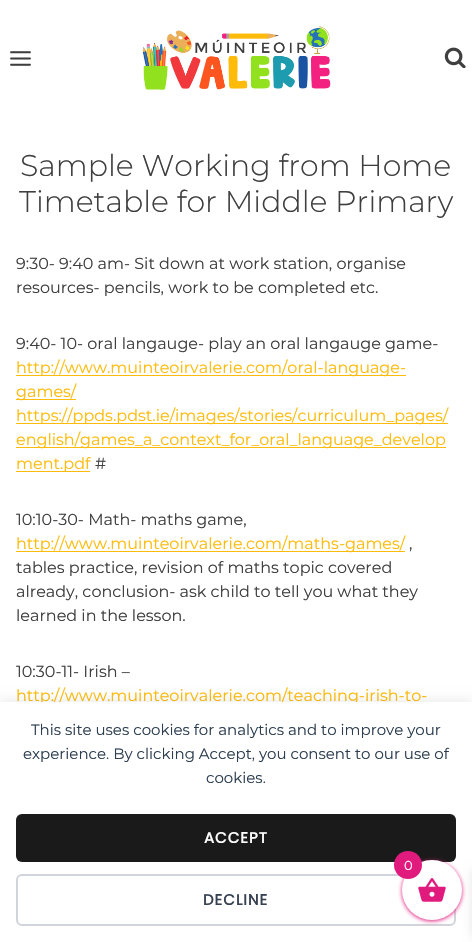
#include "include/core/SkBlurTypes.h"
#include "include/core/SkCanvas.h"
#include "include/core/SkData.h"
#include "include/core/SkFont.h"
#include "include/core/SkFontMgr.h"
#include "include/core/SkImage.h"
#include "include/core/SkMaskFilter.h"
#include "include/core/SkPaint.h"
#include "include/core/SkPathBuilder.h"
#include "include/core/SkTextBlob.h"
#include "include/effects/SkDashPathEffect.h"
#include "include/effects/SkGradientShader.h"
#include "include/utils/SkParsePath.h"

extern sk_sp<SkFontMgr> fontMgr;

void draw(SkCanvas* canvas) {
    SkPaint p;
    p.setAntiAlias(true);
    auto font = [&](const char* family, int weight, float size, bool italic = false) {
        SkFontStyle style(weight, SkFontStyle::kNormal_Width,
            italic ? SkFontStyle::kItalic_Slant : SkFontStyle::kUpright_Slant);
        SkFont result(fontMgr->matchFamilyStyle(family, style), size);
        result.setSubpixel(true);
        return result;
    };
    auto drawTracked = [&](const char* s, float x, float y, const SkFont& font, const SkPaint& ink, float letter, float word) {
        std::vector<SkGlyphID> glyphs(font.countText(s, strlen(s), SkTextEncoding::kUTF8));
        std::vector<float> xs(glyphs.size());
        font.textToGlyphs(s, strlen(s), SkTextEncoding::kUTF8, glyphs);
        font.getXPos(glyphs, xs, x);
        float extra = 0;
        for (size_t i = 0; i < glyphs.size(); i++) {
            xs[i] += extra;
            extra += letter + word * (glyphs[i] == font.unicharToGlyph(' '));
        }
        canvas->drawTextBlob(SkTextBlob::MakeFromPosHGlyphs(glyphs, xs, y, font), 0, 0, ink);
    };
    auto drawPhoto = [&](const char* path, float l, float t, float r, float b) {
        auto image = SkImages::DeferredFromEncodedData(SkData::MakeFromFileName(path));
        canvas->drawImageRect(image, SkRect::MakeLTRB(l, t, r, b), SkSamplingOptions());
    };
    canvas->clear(0xFFFFFFFF);
    drawPhoto("media/1.png", 10, 51, 31, 66);
    drawPhoto("media/2.png", 142, 26, 331, 90);
    drawPhoto("media/3.png", 444, 47, 466, 68);
    auto font1 = font("Montserrat", 300, 30);
    p.setColor(0xFF3F3F3F);
    canvas->drawString("Sample Working from Home", 20, 176, font1, p);
    canvas->drawString("Timetable for Middle Primary", 19, 212, font1, p);
    auto font2 = font("Montserrat", 400, 16);
    {
        const struct { const char* s; float x, y; } items[] = {
            {"9:30- 9:40 am- Sit down at work station, organise", 16, 269},
            {"resources- pencils, work to be completed etc.", 16, 293},
            {"9:40- 10- oral langauge- play an oral langauge game-", 16, 349},
        };
        for (auto [s, x, y] : items) {
            canvas->drawString(s, x, y, font2, p);
        }
    }
    p.setColor(0xFFFEBB09);
    canvas->drawRect(SkRect::MakeLTRB(16, 375, 406, 376), p);
    canvas->drawString("http://www.muinteoirvalerie.com/oral-language-", 16, 373, font2, p);
    canvas->drawRect(SkRect::MakeLTRB(16, 399, 76, 400), p);
    canvas->drawString("games/", 16, 397, font2, p);
    canvas->drawRect(SkRect::MakeLTRB(16, 423, 448, 424), p);
    canvas->drawString("https://ppds.pdst.ie/images/stories/curriculum_pages/", 16, 421, font2, p);
    canvas->drawRect(SkRect::MakeLTRB(16, 447, 446, 448), p);
    canvas->drawString("english/games_a_context_for_oral_language_develop", 16, 445, font2, p);
    canvas->drawRect(SkRect::MakeLTRB(16, 471, 90, 472), p);
    canvas->drawString("ment.pdf", 16, 469, font2, p);
    p.setColor(0xFF3F3F3F);
    canvas->drawString("#", 95, 469, font2, p);
    canvas->drawString("10:10-30- Math- maths game,", 16, 525, font2, p);
    p.setColor(0xFFFEBB09);
    canvas->drawRect(SkRect::MakeLTRB(16, 551, 405, 552), p);
    canvas->drawString("http://www.muinteoirvalerie.com/maths-games/", 16, 549, font2, p);
    p.setColor(0xFF3F3F3F);
    {
        const struct { const char* s; float x, y; } items[] = {
            {",", 409, 549},
            {"tables practice, revision of maths topic covered", 16, 573},
            {"already, conclusion- ask child to tell you what they", 16, 597},
            {"learned in the lesson.", 16, 621},
            {"10:30-11- Irish –", 16, 677},
        };
        for (auto [s, x, y] : items) {
            canvas->drawString(s, x, y, font2, p);
        }
    }
    p.setColor(0xFFFEBB09);
    canvas->drawString("http://www.muinteoirvalerie.com/teaching-irish-to-", 16, 701, font2, p);
    p.setColor(0x14000000);
    p.setMaskFilter(SkMaskFilter::MakeBlur(kNormal_SkBlurStyle, 5));
    canvas->drawRect(SkRect::MakeLTRB(0, 700, 472, 940), p);
    p.setMaskFilter(nullptr);
    p.setColor(0xFFFFFFFF);
    canvas->drawRect(SkRect::MakeLTRB(0, 702, 472, 942), p);
    auto font3 = font("Montserrat", 400, 15);
    p.setColor(0xFF2C3E50);
    {
        const struct { const char* s; float x, y; } items[] = {
            {"This site uses cookies for analytics and to improve your", 31, 735},
            {"experience. By clicking Accept, you consent to our use of", 23, 759},
            {"cookies.", 206, 783},
        };
        for (auto [s, x, y] : items) {
            canvas->drawString(s, x, y, font3, p);
        }
    }
    p.setColor(0xFF1A1A1A);
    canvas->drawRoundRect(SkRect::MakeLTRB(16, 814, 456, 862), 6, 6, p);
    auto font4 = font("Poppins", 700, 15);
    p.setColor(0xFFFFFFFF);
    drawTracked("ACCEPT", 204, 843, font4, p, 1, 0);
    p.setStyle(SkPaint::kStroke_Style);
    p.setStrokeWidth(2);
    p.setColor(0xFFD1D5DB);
    canvas->drawRoundRect(SkRect::MakeLTRB(17, 875, 455, 925), 5, 5, p);
    p.setStyle(SkPaint::kFill_Style);
    p.setColor(0xFF374151);
    drawTracked("DECLINE", 203, 905, font4, p, 1, 0);
    p.setColor(0xFFE11B7E);
    p.setMaskFilter(SkMaskFilter::MakeBlur(kNormal_SkBlurStyle, 2));
    canvas->drawRoundRect(SkRect::MakeLTRB(402, 861, 462, 921), 30, 30, p);
    p.setMaskFilter(nullptr);
    p.setColor(0x1A000000);
    p.setMaskFilter(SkMaskFilter::MakeBlur(kNormal_SkBlurStyle, 5));
    canvas->drawRect(SkRect::MakeLTRB(472, 870, 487, 937), p);
    p.setMaskFilter(nullptr);
    p.setColor(0xFFFFFFFF);
    canvas->drawCircle(432, 890, 30, p);
    drawPhoto("media/4.png", 418, 878, 446, 902);
    p.setColor(0xFFE11B7E);
    canvas->drawCircle(408, 865, 14, p);
    auto font5 = font("Montserrat", 400, 13);
    p.setColor(0xFFFFFFFF);
    canvas->drawString("0", 404, 870, font5, p);
}
